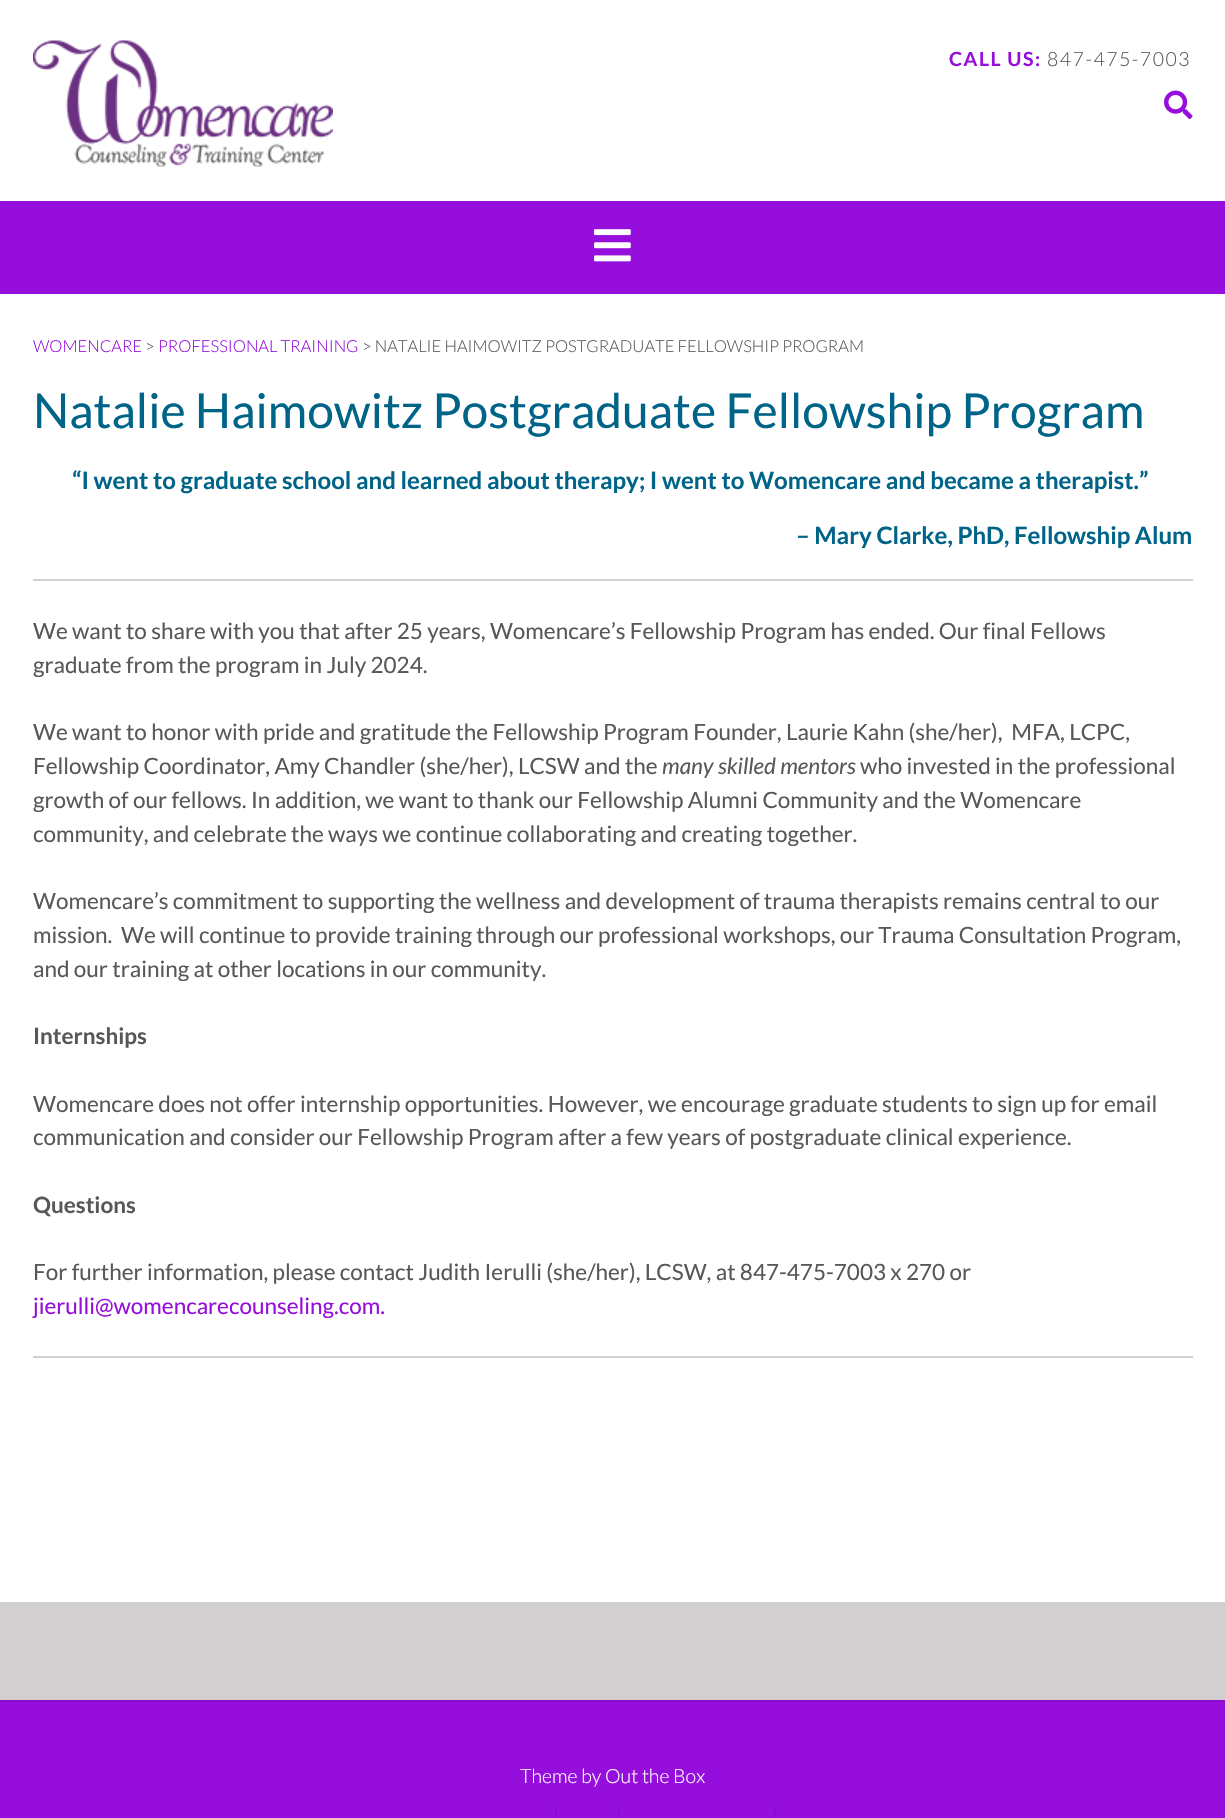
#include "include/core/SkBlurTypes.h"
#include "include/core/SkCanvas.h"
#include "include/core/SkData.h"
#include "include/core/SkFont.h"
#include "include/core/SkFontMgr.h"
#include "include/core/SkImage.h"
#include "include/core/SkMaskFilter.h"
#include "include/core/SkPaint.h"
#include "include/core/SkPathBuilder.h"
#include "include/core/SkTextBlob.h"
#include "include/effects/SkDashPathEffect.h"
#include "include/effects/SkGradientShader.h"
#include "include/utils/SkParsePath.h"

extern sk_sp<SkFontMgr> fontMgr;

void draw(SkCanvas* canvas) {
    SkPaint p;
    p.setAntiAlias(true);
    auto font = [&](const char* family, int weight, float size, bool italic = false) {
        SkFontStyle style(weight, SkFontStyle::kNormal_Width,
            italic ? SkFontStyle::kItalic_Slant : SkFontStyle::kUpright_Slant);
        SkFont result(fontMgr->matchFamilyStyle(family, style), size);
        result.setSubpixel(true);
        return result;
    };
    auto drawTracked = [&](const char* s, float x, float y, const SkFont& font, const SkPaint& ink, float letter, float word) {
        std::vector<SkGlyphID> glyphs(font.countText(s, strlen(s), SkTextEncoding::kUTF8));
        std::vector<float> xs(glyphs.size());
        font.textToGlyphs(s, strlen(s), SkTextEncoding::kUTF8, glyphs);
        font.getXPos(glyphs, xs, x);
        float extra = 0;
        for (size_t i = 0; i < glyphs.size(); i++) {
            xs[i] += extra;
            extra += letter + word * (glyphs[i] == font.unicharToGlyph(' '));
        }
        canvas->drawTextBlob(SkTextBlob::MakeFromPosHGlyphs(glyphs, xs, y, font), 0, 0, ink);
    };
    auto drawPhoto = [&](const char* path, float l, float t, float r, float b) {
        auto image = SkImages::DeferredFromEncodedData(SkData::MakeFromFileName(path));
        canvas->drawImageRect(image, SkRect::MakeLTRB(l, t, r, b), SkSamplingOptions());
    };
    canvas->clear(0xFFFFFFFF);
    drawPhoto("media/1.png", 33, 40, 333, 167);
    auto font1 = font("Lato", 700, 19.5f);
    p.setColor(0xFF950EDB);
    drawTracked("CALL US:", 949, 66, font1, p, 1.5f, 0);
    auto font2 = font("Lato", 300, 19.5f);
    p.setColor(0xFF58585A);
    drawTracked("847-475-7003", 1047, 66, font2, p, 1.5f, 0);
    drawPhoto("media/2.png", 1164, 90, 1193, 119);
    p.setColor(0xFF950EDB);
    canvas->drawRect(SkRect::MakeLTRB(0, 201, 1225, 294), p);
    drawPhoto("media/3.png", 594, 229, 631, 262);
    auto font3 = font("Lato", 300, 16.5f);
    canvas->drawString("WOMENCARE", 33, 352, font3, p);
    p.setColor(0xFF58585A);
    canvas->drawString(">", 145, 352, font3, p);
    p.setColor(0xFF950EDB);
    canvas->drawString("PROFESSIONAL TRAINING", 158, 352, font3, p);
    p.setColor(0xFF58585A);
    canvas->drawString("> NATALIE HAIMOWITZ POSTGRADUATE FELLOWSHIP PROGRAM", 362, 352, font3, p);
    auto font4 = font("Lato", 400, 48);
    p.setColor(0xFF006489);
    canvas->drawString("Natalie Haimowitz Postgraduate Fellowship Program", 33, 428, font4, p);
    auto font5 = font("Lato", 700, 24);
    canvas->drawString("“I went to graduate school and learned about therapy; I went to Womencare and became a therapist.”", 72, 489, font5, p);
    canvas->drawString("– Mary Clarke, PhD, Fellowship Alum", 796, 544, font5, p);
    p.setColor(0xFFD0D2D4);
    canvas->drawRect(SkRect::MakeLTRB(33, 579, 1193, 581), p);
    auto font6 = font("Lato", 400, 22.5f);
    p.setColor(0xFF58585A);
    {
        const struct { const char* s; float x, y; } items[] = {
            {"We want to share with you that after 25 years, Womencare’s Fellowship Program has ended. Our final Fellows", 33, 639},
            {"graduate from the program in July 2024.", 33, 673},
            {"We want to honor with pride and gratitude the Fellowship Program Founder, Laurie Kahn (she/her),  MFA, LCPC,", 33, 740},
            {"Fellowship Coordinator, Amy Chandler (she/her), LCSW and the", 33, 774},
        };
        for (auto [s, x, y] : items) {
            canvas->drawString(s, x, y, font6, p);
        }
    }
    auto font7 = font("Lato", 400, 22.5f, true);
    canvas->drawString("many skilled mentors", 662, 774, font7, p);
    {
        const struct { const char* s; float x, y; } items[] = {
            {"who invested in the professional", 860, 774},
            {"growth of our fellows. In addition, we want to thank our Fellowship Alumni Community and the Womencare", 33, 808},
            {"community, and celebrate the ways we continue collaborating and creating together.", 33, 842},
            {"Womencare’s commitment to supporting the wellness and development of trauma therapists remains central to our", 33, 909},
            {"mission.  We will continue to provide training through our professional workshops, our Trauma Consultation Program,", 33, 943},
            {"and our training at other locations in our community.", 33, 977},
        };
        for (auto [s, x, y] : items) {
            canvas->drawString(s, x, y, font6, p);
        }
    }
    auto font8 = font("Lato", 700, 22.5f);
    canvas->drawString("Internships", 33, 1044, font8, p);
    canvas->drawString("Womencare does not offer internship opportunities. However, we encourage graduate students to sign up for email", 33, 1112, font6, p);
    canvas->drawString("communication and consider our Fellowship Program after a few years of postgraduate clinical experience.", 33, 1145, font6, p);
    canvas->drawString("Questions", 33, 1213, font8, p);
    canvas->drawString("For further information, please contact Judith Ierulli (she/her), LCSW, at 847-475-7003 x 270 or", 33, 1280, font6, p);
    p.setColor(0xFF950EDB);
    canvas->drawString("jierulli@womencarecounseling.com.", 33, 1314, font6, p);
    {
        const struct { float l, t, r, b; SkColor color; } items[] = {
            {33, 1356, 1193, 1358, 0xFFD0D2D4},
            {0, 1602, 1225, 1700, 0xFFD1CFCF},
            {0, 1702, 1225, 1818, 0xFF950EDB},
            {0, 1700, 1225, 1702, 0xFF890DC9},
        };
        for (auto [l, t, r, b, color] : items) {
            p.setColor(color);
            canvas->drawRect(SkRect::MakeLTRB(l, t, r, b), p);
        }
    }
    p.setColor(0xFFFFFFFF);
    canvas->drawString("Theme by Out the Box", 520, 1783, font2, p);
    p.setColor(0xFF890DC9);
    canvas->drawPath(SkPathBuilder().moveTo(356, 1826).lineTo(557, 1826).lineTo(557, 1806).lineTo(555, 1806).lineTo(555, 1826).close().detach(), p);
    canvas->drawPath(SkPathBuilder().moveTo(561, 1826).lineTo(620, 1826).lineTo(620, 1806).lineTo(618, 1806).lineTo(618, 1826).close().detach(), p);
    canvas->drawPath(SkPathBuilder().moveTo(623, 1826).lineTo(776, 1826).lineTo(776, 1806).lineTo(774, 1806).lineTo(774, 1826).close().detach(), p);
}
